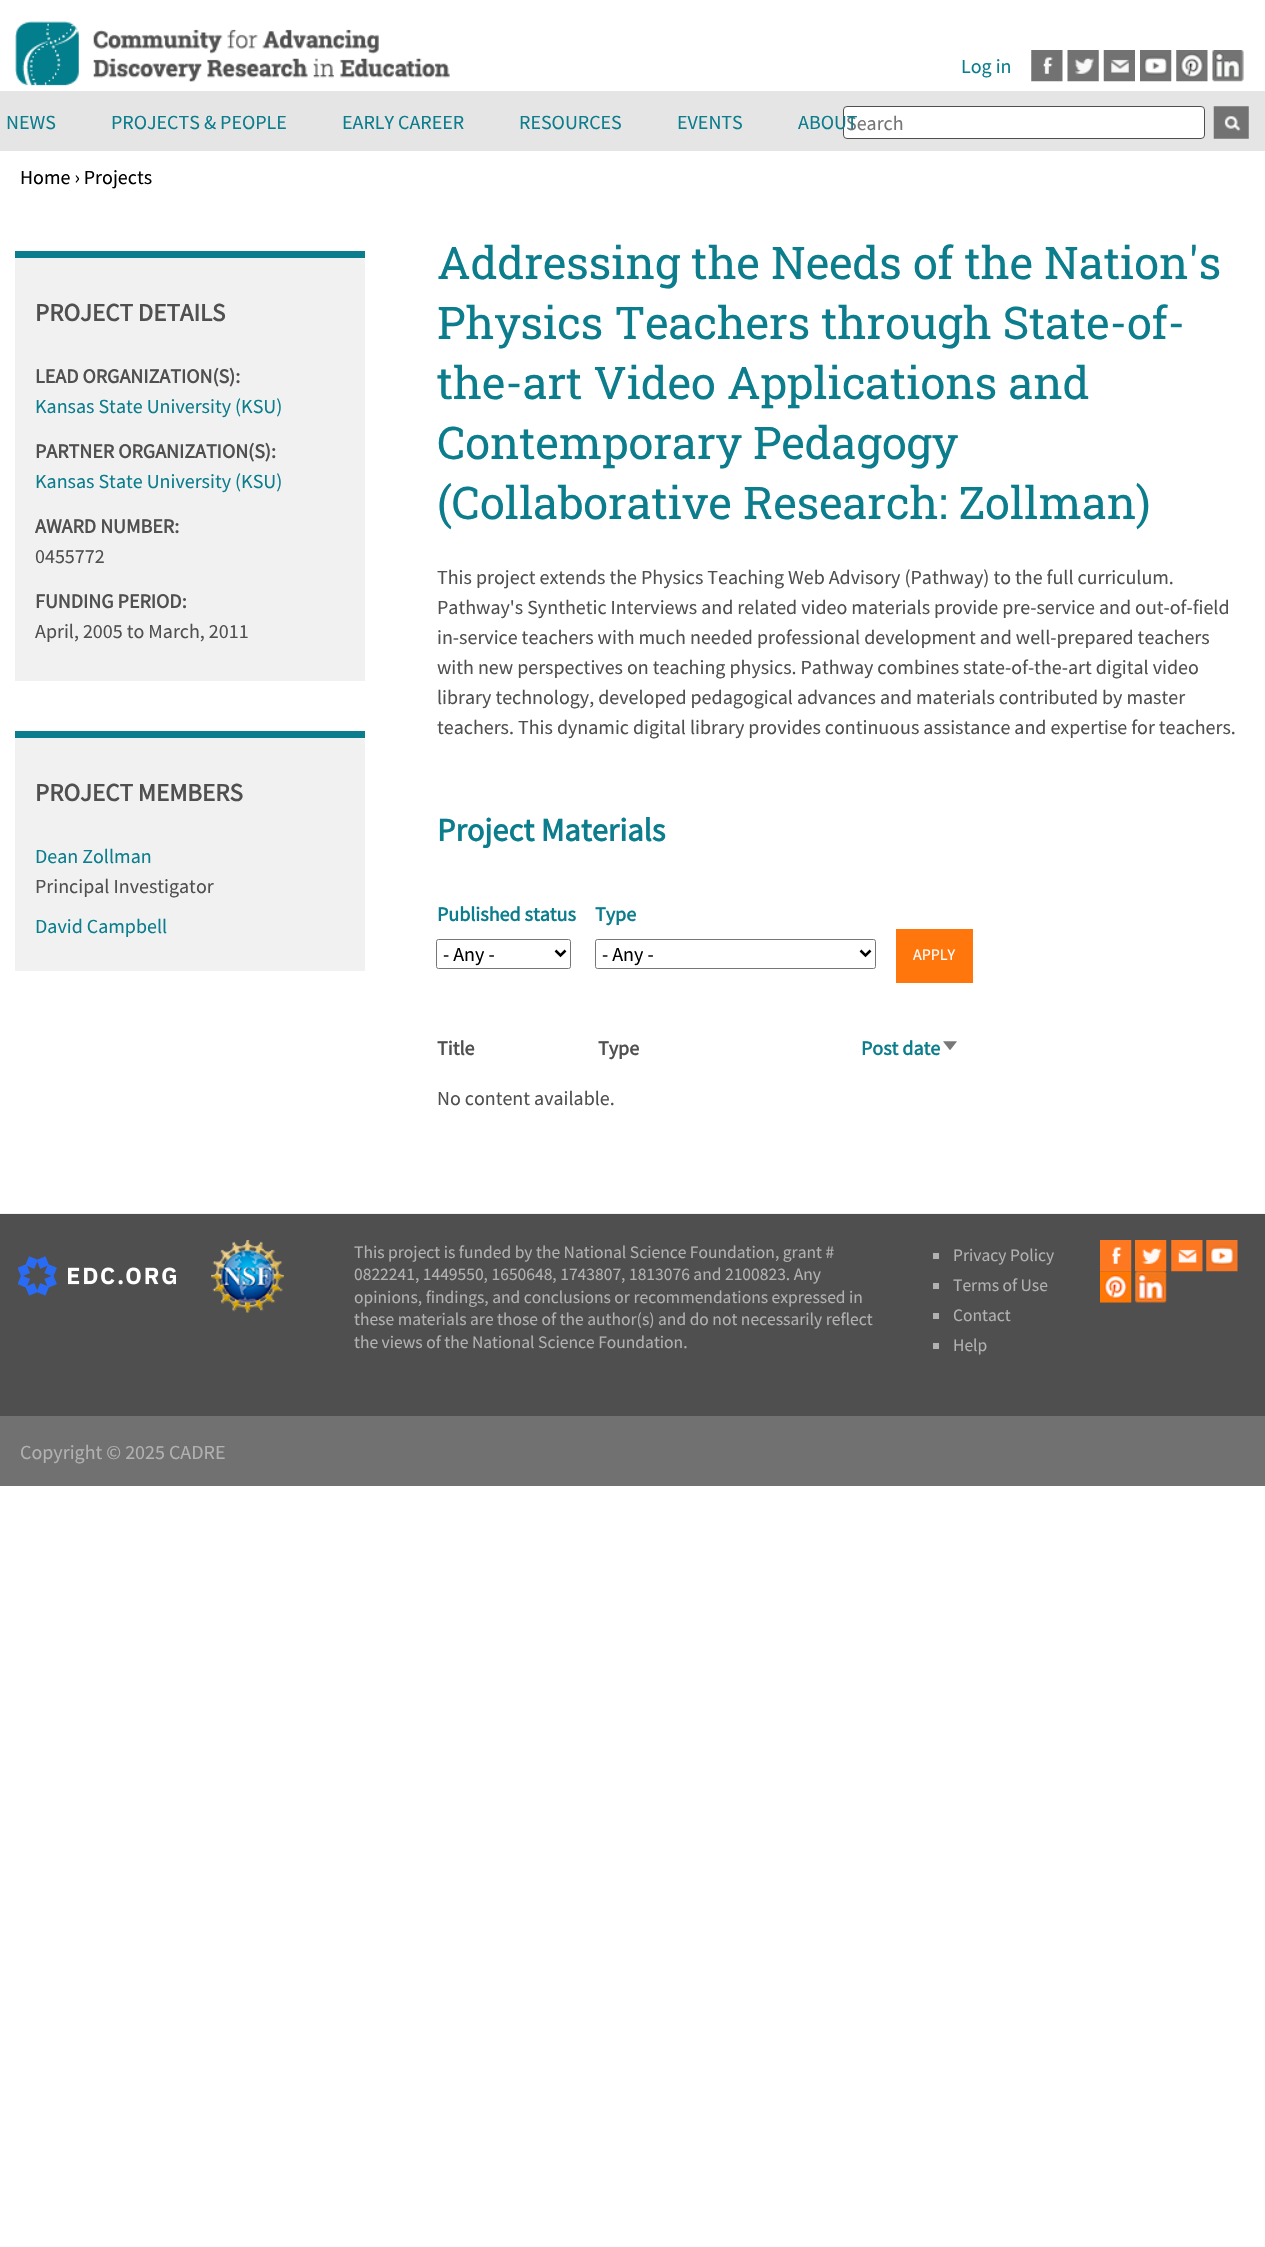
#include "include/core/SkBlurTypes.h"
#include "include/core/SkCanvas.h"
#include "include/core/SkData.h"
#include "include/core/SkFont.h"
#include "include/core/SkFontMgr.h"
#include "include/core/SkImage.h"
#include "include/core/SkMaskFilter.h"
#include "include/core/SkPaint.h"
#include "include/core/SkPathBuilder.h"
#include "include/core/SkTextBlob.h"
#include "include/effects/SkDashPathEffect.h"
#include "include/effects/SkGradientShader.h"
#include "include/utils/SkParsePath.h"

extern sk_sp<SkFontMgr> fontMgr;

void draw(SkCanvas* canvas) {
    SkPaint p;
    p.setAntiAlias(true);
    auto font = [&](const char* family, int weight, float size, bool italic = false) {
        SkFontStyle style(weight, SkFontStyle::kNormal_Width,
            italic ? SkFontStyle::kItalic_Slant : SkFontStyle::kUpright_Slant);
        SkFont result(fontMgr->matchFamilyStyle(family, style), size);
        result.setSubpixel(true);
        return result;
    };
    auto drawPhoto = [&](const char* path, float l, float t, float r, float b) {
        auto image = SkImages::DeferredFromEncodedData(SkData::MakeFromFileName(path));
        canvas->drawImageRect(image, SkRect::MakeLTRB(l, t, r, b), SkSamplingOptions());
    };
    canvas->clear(0xFFFFFFFF);
    drawPhoto("media/1.png", 15, 21, 450, 86);
    auto font1 = font("Source Sans Pro", 400, 20);
    p.setColor(0xFF0B7D8C);
    canvas->drawString("Log in", 961, 73, font1, p);
    drawPhoto("media/2.png", 1031, 50, 1063, 82);
    drawPhoto("media/3.png", 1067, 50, 1099, 82);
    drawPhoto("media/4.png", 1103, 50, 1135, 82);
    drawPhoto("media/5.png", 1140, 50, 1172, 82);
    drawPhoto("media/6.png", 1176, 50, 1208, 82);
    drawPhoto("media/7.png", 1212, 50, 1244, 82);
    p.setColor(0xFFE5E5E5);
    canvas->drawRect(SkRect::MakeLTRB(0, 91, 1265, 151), p);
    p.setColor(0xFF0B7D8C);
    {
        const struct { const char* s; float x, y; } items[] = {
            {"NEWS", 6, 129},
            {"PROJECTS & PEOPLE", 111, 129},
            {"EARLY CAREER", 342, 129},
            {"RESOURCES", 519, 129},
            {"EVENTS", 677, 129},
        };
        for (auto [s, x, y] : items) {
            canvas->drawString(s, x, y, font1, p);
        }
    }
    p.setColor(0xFFFFFFFF);
    canvas->drawRoundRect(SkRect::MakeLTRB(843.5f, 106.5f, 1204.5f, 138.5f), 3.5f, 3.5f, p);
    p.setStyle(SkPaint::kStroke_Style);
    p.setStrokeWidth(1);
    p.setColor(0xFF4F4F4F);
    canvas->drawRoundRect(SkRect::MakeLTRB(843.5f, 106.5f, 1204.5f, 138.5f), 3.5f, 3.5f, p);
    p.setStyle(SkPaint::kFill_Style);
    p.setColor(0xFF757575);
    canvas->drawString("Search", 846, 130, font1, p);
    p.setColor(0xFF0B7D8C);
    canvas->drawString("ABOUT", 798, 129, font1, p);
    drawPhoto("media/8.png", 1213, 106, 1249, 139);
    p.setColor(0xFF000000);
    canvas->drawString("Home › Projects", 20, 184, font1, p);
    p.setColor(0xFFF1F1F1);
    canvas->drawRect(SkRect::MakeLTRB(15, 258, 365, 681), p);
    p.setColor(0xFF0B7D8C);
    canvas->drawRect(SkRect::MakeLTRB(15, 251, 365, 258), p);
    auto font2 = font("Source Sans Pro", 700, 25);
    p.setColor(0xFF505050);
    canvas->drawString("PROJECT DETAILS", 35, 321, font2, p);
    auto font3 = font("Source Sans Pro", 700, 20);
    canvas->drawString("LEAD ORGANIZATION(S):", 35, 383, font3, p);
    p.setColor(0xFF0B7D8C);
    canvas->drawString("Kansas State University (KSU)", 35, 413, font1, p);
    p.setColor(0xFF505050);
    canvas->drawString("PARTNER ORGANIZATION(S):", 35, 458, font3, p);
    p.setColor(0xFF0B7D8C);
    canvas->drawString("Kansas State University (KSU)", 35, 488, font1, p);
    p.setColor(0xFF505050);
    canvas->drawString("AWARD NUMBER:", 35, 533, font3, p);
    canvas->drawString("0455772", 35, 563, font1, p);
    canvas->drawString("FUNDING PERIOD:", 35, 608, font3, p);
    canvas->drawString("April, 2005 to March, 2011", 35, 638, font1, p);
    p.setColor(0xFFF1F1F1);
    canvas->drawRect(SkRect::MakeLTRB(15, 738, 365, 971), p);
    p.setColor(0xFF0B7D8C);
    canvas->drawRect(SkRect::MakeLTRB(15, 731, 365, 738), p);
    p.setColor(0xFF505050);
    canvas->drawString("PROJECT MEMBERS", 35, 801, font2, p);
    p.setColor(0xFF0B7D8C);
    canvas->drawString("Dean Zollman", 35, 863, font1, p);
    p.setColor(0xFF505050);
    canvas->drawString("Principal Investigator", 35, 893, font1, p);
    p.setColor(0xFF0B7D8C);
    canvas->drawString("David Campbell", 35, 933, font1, p);
    auto font4 = font("Roboto Slab", 400, 45);
    {
        const struct { const char* s; float x, y; } items[] = {
            {"Addressing the Needs of the Nation's", 437, 279},
            {"Physics Teachers through State-of-", 437, 339},
            {"the-art Video Applications and", 437, 399},
            {"Contemporary Pedagogy", 437, 459},
            {"(Collaborative Research: Zollman)", 437, 519},
        };
        for (auto [s, x, y] : items) {
            canvas->drawString(s, x, y, font4, p);
        }
    }
    p.setColor(0xFF505050);
    {
        const struct { const char* s; float x, y; } items[] = {
            {"This project extends the Physics Teaching Web Advisory (Pathway) to the full curriculum.", 437, 584},
            {"Pathway's Synthetic Interviews and related video materials provide pre-service and out-of-field", 437, 614},
            {"in-service teachers with much needed professional development and well-prepared teachers", 437, 644},
            {"with new perspectives on teaching physics. Pathway combines state-of-the-art digital video", 437, 674},
            {"library technology, developed pedagogical advances and materials contributed by master", 437, 704},
            {"teachers. This dynamic digital library provides continuous assistance and expertise for teachers.", 437, 734},
        };
        for (auto [s, x, y] : items) {
            canvas->drawString(s, x, y, font1, p);
        }
    }
    auto font5 = font("Source Sans Pro", 700, 32.5f);
    p.setColor(0xFF0B7D8C);
    canvas->drawString("Project Materials", 437, 841, font5, p);
    canvas->drawString("Published status", 437, 921, font3, p);
    p.setStyle(SkPaint::kStroke_Style);
    p.setColor(0xFF767676);
    canvas->drawRoundRect(SkRect::MakeLTRB(436.5f, 939.5f, 570.5f, 968.5f), 2, 2, p);
    p.setStrokeWidth(2.5f);
    p.setColor(0xFF000000);
    canvas->drawPath(SkPathBuilder().moveTo(555.5f, 950.5f).lineTo(560.5f, 955.5f).lineTo(565.5f, 950.5f).detach(), p);
    p.setStyle(SkPaint::kFill_Style);
    canvas->drawString("- Any -", 443, 961, font1, p);
    p.setColor(0xFF0B7D8C);
    canvas->drawString("Type", 595, 921, font3, p);
    p.setStyle(SkPaint::kStroke_Style);
    p.setStrokeWidth(1);
    p.setColor(0xFF767676);
    canvas->drawRoundRect(SkRect::MakeLTRB(595.5f, 939.5f, 875.5f, 968.5f), 2, 2, p);
    p.setStrokeWidth(2.5f);
    p.setColor(0xFF000000);
    canvas->drawPath(SkPathBuilder().moveTo(860.5f, 950.5f).lineTo(865.5f, 955.5f).lineTo(870.5f, 950.5f).detach(), p);
    p.setStyle(SkPaint::kFill_Style);
    canvas->drawString("- Any -", 602, 961, font1, p);
    p.setColor(0xFFFF770C);
    canvas->drawRect(SkRect::MakeLTRB(896, 929, 973, 983), p);
    auto font6 = font("Source Sans Pro", 400, 16);
    p.setColor(0xFFFFFFFF);
    canvas->drawString("APPLY", 913, 960, font6, p);
    p.setColor(0xFF505050);
    canvas->drawString("Title", 437, 1055, font3, p);
    canvas->drawString("Type", 598, 1055, font3, p);
    p.setColor(0xFF0B7D8C);
    canvas->drawString("Post date", 861, 1055, font3, p);
    drawPhoto("media/9.png", 943, 1041, 957, 1050);
    p.setColor(0xFF505050);
    canvas->drawString("No content available.", 437, 1105, font1, p);
    p.setColor(0xFF4F4F4F);
    canvas->drawRect(SkRect::MakeLTRB(0, 1214, 1265, 1416), p);
    p.setColor(0xFFF1F1F1);
    canvas->drawRect(SkRect::MakeLTRB(0, 1213, 1265, 1214), p);
    drawPhoto("media/10.png", 18, 1256, 176, 1296);
    drawPhoto("media/11.png", 211, 1240, 284, 1313);
    auto font7 = font("Source Sans Pro", 400, 17.5f);
    p.setColor(0xFFB1B1B1);
    {
        const struct { const char* s; float x, y; } items[] = {
            {"This project is funded by the National Science Foundation, grant #", 354, 1258},
            {"0822241, 1449550, 1650648, 1743807, 1813076 and 2100823. Any", 354, 1280},
            {"opinions, findings, and conclusions or recommendations expressed in", 354, 1303},
            {"these materials are those of the author(s) and do not necessarily reflect", 354, 1325},
            {"the views of the National Science Foundation.", 354, 1348},
        };
        for (auto [s, x, y] : items) {
            canvas->drawString(s, x, y, font7, p);
        }
    }
    canvas->drawRect(SkRect::MakeLTRB(933, 1253, 939, 1259), p);
    canvas->drawString("Privacy Policy", 953, 1261, font7, p);
    canvas->drawRect(SkRect::MakeLTRB(933, 1283, 939, 1289), p);
    canvas->drawString("Terms of Use", 953, 1291, font7, p);
    canvas->drawRect(SkRect::MakeLTRB(933, 1313, 939, 1319), p);
    canvas->drawString("Contact", 953, 1321, font7, p);
    canvas->drawRect(SkRect::MakeLTRB(933, 1343, 939, 1349), p);
    canvas->drawString("Help", 953, 1351, font7, p);
    drawPhoto("media/12.png", 1100, 1240, 1132, 1272);
    drawPhoto("media/13.png", 1135, 1240, 1167, 1272);
    drawPhoto("media/14.png", 1171, 1240, 1203, 1272);
    drawPhoto("media/15.png", 1206, 1240, 1238, 1272);
    drawPhoto("media/16.png", 1100, 1271, 1132, 1303);
    drawPhoto("media/17.png", 1135, 1271, 1167, 1303);
    p.setColor(0xFF717171);
    canvas->drawRect(SkRect::MakeLTRB(0, 1416, 1265, 1486), p);
    p.setColor(0xFFB1B1B1);
    canvas->drawString("Copyright © 2025 CADRE", 20, 1459, font1, p);
}
